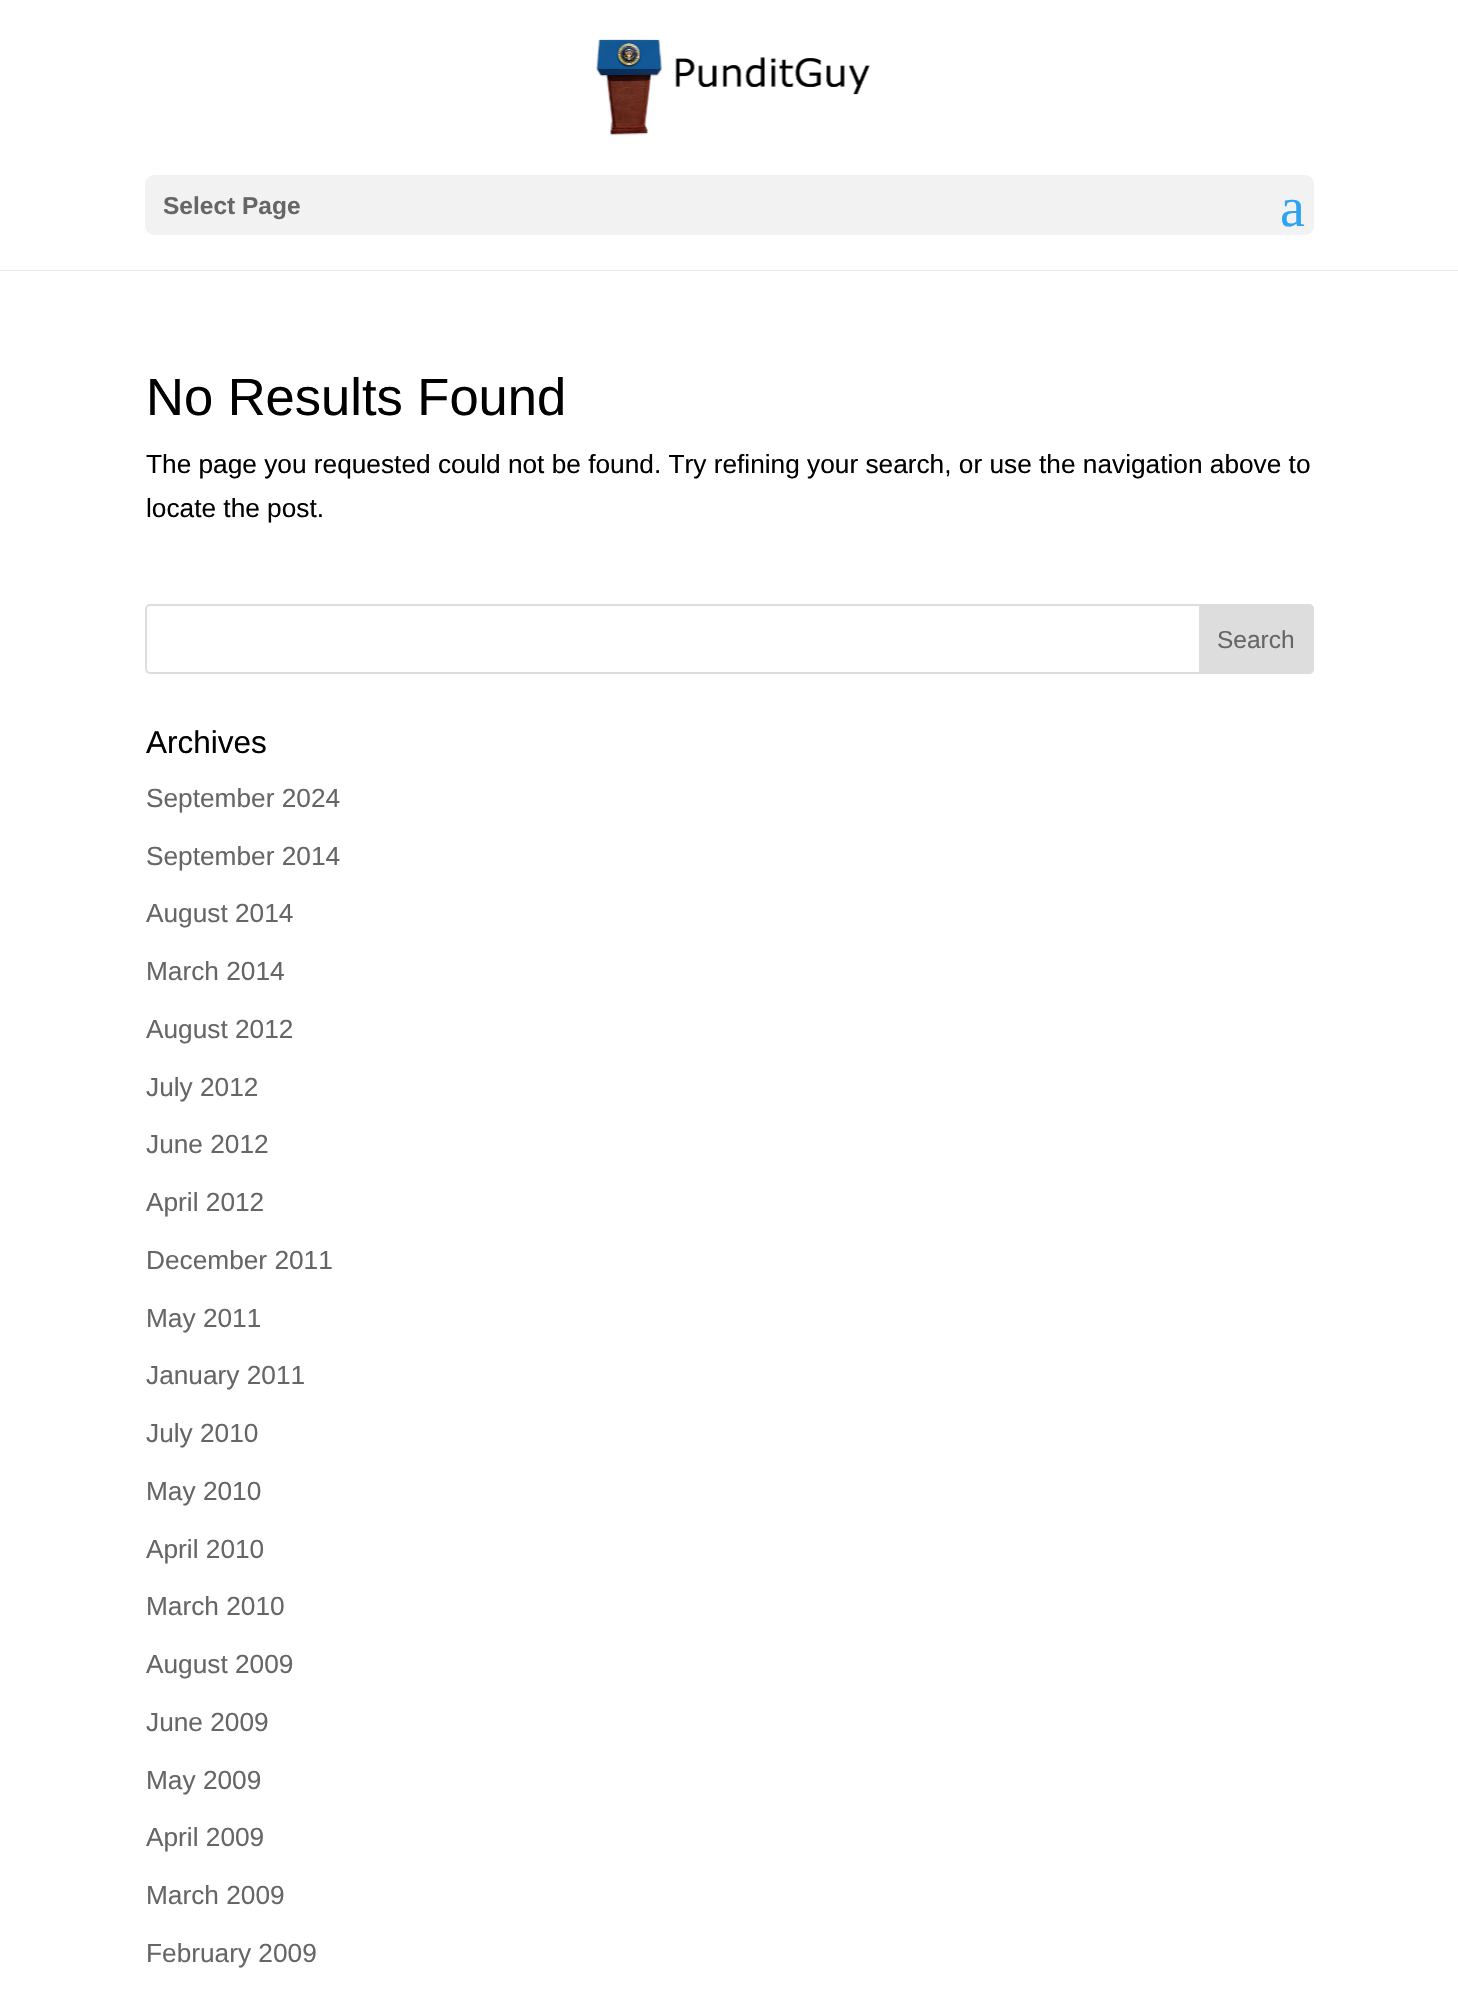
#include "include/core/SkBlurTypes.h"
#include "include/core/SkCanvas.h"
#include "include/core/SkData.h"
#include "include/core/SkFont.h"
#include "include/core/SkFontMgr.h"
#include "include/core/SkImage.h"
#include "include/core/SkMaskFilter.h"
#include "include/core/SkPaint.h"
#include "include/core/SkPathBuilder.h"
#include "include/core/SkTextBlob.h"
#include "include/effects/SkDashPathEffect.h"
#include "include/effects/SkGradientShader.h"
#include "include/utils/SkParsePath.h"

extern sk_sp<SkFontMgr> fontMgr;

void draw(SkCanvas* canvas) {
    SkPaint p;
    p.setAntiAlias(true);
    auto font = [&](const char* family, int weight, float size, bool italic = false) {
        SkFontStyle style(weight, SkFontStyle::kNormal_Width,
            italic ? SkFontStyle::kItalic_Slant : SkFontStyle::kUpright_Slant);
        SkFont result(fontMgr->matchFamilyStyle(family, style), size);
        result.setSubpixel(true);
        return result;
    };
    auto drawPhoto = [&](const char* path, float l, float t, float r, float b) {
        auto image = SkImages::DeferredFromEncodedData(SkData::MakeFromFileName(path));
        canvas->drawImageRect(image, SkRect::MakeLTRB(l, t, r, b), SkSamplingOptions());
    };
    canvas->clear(0xFFFFFFFF);
    p.setColor(0xFFE6E6E6);
    canvas->drawPath(SkPathBuilder().moveTo(0, 270).lineTo(0, 271).lineTo(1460, 271).lineTo(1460, 2).lineTo(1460, 270).close().detach(), p);
    drawPhoto("media/1.png", 596, 39, 870, 136);
    p.setColor(0xFFF2F2F2);
    canvas->drawRoundRect(SkRect::MakeLTRB(145, 175, 1314, 235), 9, 9, p);
    auto font1 = font("Liberation Sans", 700, 24.5f);
    p.setColor(0xFF666666);
    canvas->drawString("Select Page", 163, 214, font1, p);
    auto font2 = font("Liberation Serif", 400, 56);
    p.setColor(0xFF2EA3F2);
    canvas->drawString("a", 1280, 226, font2, p);
    auto font3 = font("Liberation Sans", 400, 52.5f);
    p.setColor(0xFF000000);
    canvas->drawString("No Results Found", 146, 415, font3, p);
    auto font4 = font("Liberation Sans", 400, 26.25f);
    canvas->drawString("The page you requested could not be found. Try refining your search, or use the navigation above to", 146, 473, font4, p);
    canvas->drawString("locate the post.", 146, 517, font4, p);
    p.setStyle(SkPaint::kStroke_Style);
    p.setStrokeWidth(2);
    p.setColor(0xFFDDDDDD);
    canvas->drawRoundRect(SkRect::MakeLTRB(146, 605, 1313, 673), 4, 4, p);
    p.setStyle(SkPaint::kFill_Style);
    canvas->drawPath(SkPathBuilder().moveTo(1200, 605).lineTo(1309, 605).cubicTo(1311, 605, 1313, 607, 1313, 609).lineTo(1313, 669).cubicTo(1313, 671, 1311, 673, 1309, 673).lineTo(1200, 673).close().detach(), p);
    p.setStyle(SkPaint::kStroke_Style);
    canvas->drawPath(SkPathBuilder().moveTo(1200, 605).lineTo(1309, 605).cubicTo(1311, 605, 1313, 607, 1313, 609).lineTo(1313, 669).cubicTo(1313, 671, 1311, 673, 1309, 673).lineTo(1200, 673).close().detach(), p);
    auto font5 = font("Liberation Sans", 400, 24.5f);
    p.setStyle(SkPaint::kFill_Style);
    p.setColor(0xFF666666);
    canvas->drawString("Search", 1217, 648, font5, p);
    auto font6 = font("Liberation Sans", 400, 31.5f);
    p.setColor(0xFF000000);
    canvas->drawString("Archives", 146, 753, font6, p);
    p.setColor(0xFF666666);
    {
        const struct { const char* s; float x, y; } items[] = {
            {"September 2024", 146, 807},
            {"September 2014", 146, 865},
            {"August 2014", 146, 922},
            {"March 2014", 146, 980},
            {"August 2012", 146, 1038},
            {"July 2012", 146, 1096},
            {"June 2012", 146, 1153},
            {"April 2012", 146, 1211},
            {"December 2011", 146, 1269},
            {"May 2011", 146, 1327},
            {"January 2011", 146, 1384},
            {"July 2010", 146, 1442},
            {"May 2010", 146, 1500},
            {"April 2010", 146, 1558},
            {"March 2010", 146, 1615},
            {"August 2009", 146, 1673},
            {"June 2009", 146, 1731},
            {"May 2009", 146, 1789},
            {"April 2009", 146, 1846},
            {"March 2009", 146, 1904},
            {"February 2009", 146, 1962},
        };
        for (auto [s, x, y] : items) {
            canvas->drawString(s, x, y, font4, p);
        }
    }
}
